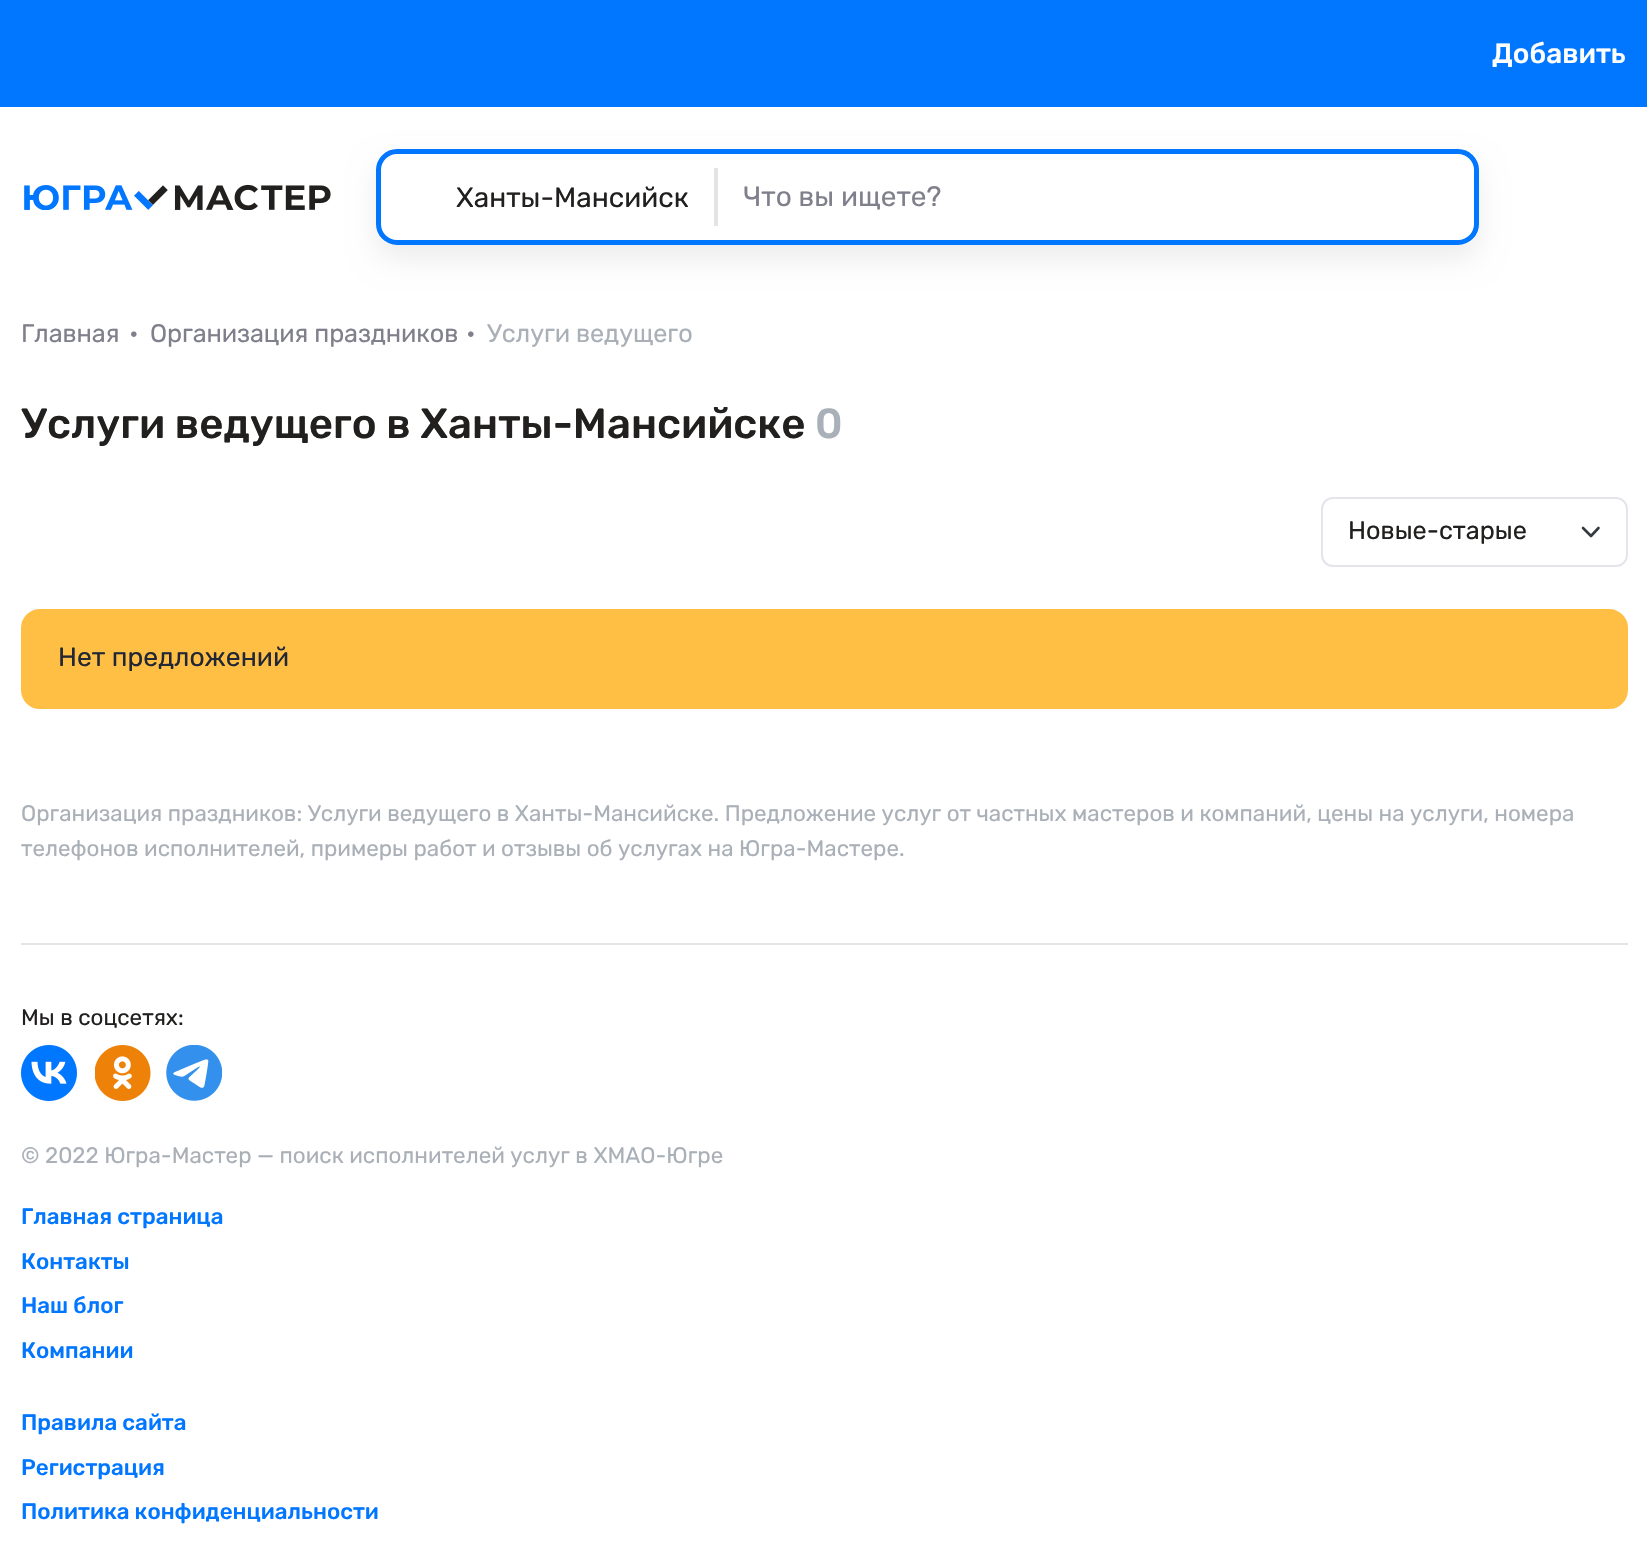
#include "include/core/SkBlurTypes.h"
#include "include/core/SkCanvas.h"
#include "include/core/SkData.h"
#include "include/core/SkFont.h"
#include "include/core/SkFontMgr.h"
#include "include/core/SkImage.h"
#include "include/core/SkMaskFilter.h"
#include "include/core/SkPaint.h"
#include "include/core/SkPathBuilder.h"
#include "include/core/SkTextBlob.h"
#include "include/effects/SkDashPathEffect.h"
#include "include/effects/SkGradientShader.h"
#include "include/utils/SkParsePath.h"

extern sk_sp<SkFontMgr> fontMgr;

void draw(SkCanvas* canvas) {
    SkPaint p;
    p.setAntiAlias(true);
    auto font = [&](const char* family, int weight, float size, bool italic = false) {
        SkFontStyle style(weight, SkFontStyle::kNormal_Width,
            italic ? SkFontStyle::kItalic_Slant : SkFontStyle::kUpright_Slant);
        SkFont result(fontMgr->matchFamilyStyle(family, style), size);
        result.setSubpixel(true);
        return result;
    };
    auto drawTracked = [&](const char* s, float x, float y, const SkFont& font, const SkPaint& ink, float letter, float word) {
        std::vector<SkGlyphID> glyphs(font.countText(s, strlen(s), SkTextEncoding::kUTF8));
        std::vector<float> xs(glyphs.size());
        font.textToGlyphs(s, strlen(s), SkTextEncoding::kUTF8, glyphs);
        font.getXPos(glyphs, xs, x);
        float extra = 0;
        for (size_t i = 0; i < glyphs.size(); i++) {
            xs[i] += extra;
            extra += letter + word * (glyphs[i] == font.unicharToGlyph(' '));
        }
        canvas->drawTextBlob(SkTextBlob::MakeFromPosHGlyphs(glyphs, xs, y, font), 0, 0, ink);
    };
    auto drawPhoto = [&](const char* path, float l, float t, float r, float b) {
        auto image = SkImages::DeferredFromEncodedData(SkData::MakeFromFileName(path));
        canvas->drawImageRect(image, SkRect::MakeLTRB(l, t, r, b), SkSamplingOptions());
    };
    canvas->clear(0xFFFFFFFF);
    p.setColor(0xFF0176FF);
    canvas->drawRect(SkRect::MakeLTRB(0, 0, 1647, 107), p);
    auto font1 = font("Rubik", 500, 28);
    p.setColor(0xFFFFFFFF);
    canvas->drawString("Добавить", 1492, 63, font1, p);
    drawPhoto("media/1.png", 24, 184, 331, 210);
    canvas->save();
    canvas->clipPath(SkPathBuilder(SkPathFillType::kEvenOdd).moveTo(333, 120).lineTo(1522, 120).lineTo(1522, 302).lineTo(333, 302).close().moveTo(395, 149).lineTo(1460, 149).cubicTo(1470.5f, 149, 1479, 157.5f, 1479, 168).lineTo(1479, 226).cubicTo(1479, 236.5f, 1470.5f, 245, 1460, 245).lineTo(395, 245).cubicTo(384.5f, 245, 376, 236.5f, 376, 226).lineTo(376, 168).cubicTo(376, 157.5f, 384.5f, 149, 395, 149).close().detach(), true);
    p.setColor(0x12000000);
    p.setMaskFilter(SkMaskFilter::MakeBlur(kNormal_SkBlurStyle, 14));
    canvas->drawRoundRect(SkRect::MakeLTRB(376, 163, 1479, 259), 19, 19, p);
    p.setMaskFilter(nullptr);
    canvas->restore();
    p.setStyle(SkPaint::kStroke_Style);
    p.setStrokeWidth(5);
    p.setColor(0xFF0176FF);
    canvas->drawRoundRect(SkRect::MakeLTRB(378.5f, 151.5f, 1476.5f, 242.5f), 18.5f, 18.5f, p);
    p.setStyle(SkPaint::kFill_Style);
    p.setColor(0xFFFFFFFF);
    canvas->drawPath(SkPathBuilder().moveTo(401, 154).lineTo(718, 154).lineTo(718, 240).lineTo(401, 240).cubicTo(390.5f, 240, 382, 231.5f, 382, 221).lineTo(382, 173).cubicTo(382, 162.5f, 390.5f, 154, 401, 154).close().detach(), p);
    auto font2 = font("Rubik", 400, 28);
    p.setColor(0xFF21201F);
    canvas->drawString("Ханты-Мансийск", 456, 207, font2, p);
    p.setColor(0xFFE4E4E4);
    canvas->drawRect(SkRect::MakeLTRB(714, 168, 718, 226), p);
    p.setColor(0xFF7F808C);
    canvas->drawString("Что вы ищете?", 743, 206, font2, p);
    p.setColor(0xFFFFFFFF);
    canvas->drawPath(SkPathBuilder().moveTo(1384, 154).lineTo(1455, 154).cubicTo(1465.5f, 154, 1474, 162.5f, 1474, 173).lineTo(1474, 221).cubicTo(1474, 231.5f, 1465.5f, 240, 1455, 240).lineTo(1384, 240).close().detach(), p);
    auto font3 = font("Rubik", 400, 25.25f);
    p.setColor(0xFF7F808C);
    {
        const struct { const char* s; float x, y; } items[] = {
            {"Главная", 21, 342},
            {"•", 129, 342},
            {"Организация праздников", 150, 342},
            {"•", 466, 342},
        };
        for (auto [s, x, y] : items) {
            drawTracked(s, x, y, font3, p, -0.1f, 0);
        }
    }
    p.setColor(0xFFAAB0B7);
    drawTracked("Услуги ведущего", 487, 342, font3, p, -0.1f, 0);
    auto font4 = font("Rubik", 500, 42);
    p.setColor(0xFF21201F);
    canvas->drawString("Услуги ведущего в Ханты-Мансийске", 21, 438, font4, p);
    p.setColor(0xFFAAB0B7);
    canvas->drawString("0", 815, 438, font4, p);
    p.setStyle(SkPaint::kStroke_Style);
    p.setStrokeWidth(2.6f);
    p.setStrokeCap(SkPaint::kRound_Cap);
    p.setStrokeJoin(SkPaint::kRound_Join);
    p.setColor(0xFF343A40);
    canvas->drawPath(SkPathBuilder().moveTo(1583, 528).lineTo(1591, 536).lineTo(1598.5f, 528).detach(), p);
    p.setStrokeWidth(2);
    p.setStrokeCap(SkPaint::kButt_Cap);
    p.setStrokeJoin(SkPaint::kMiter_Join);
    p.setColor(0xFFE4E5EC);
    canvas->drawRoundRect(SkRect::MakeLTRB(1322, 498, 1627, 566), 11, 11, p);
    p.setStyle(SkPaint::kFill_Style);
    p.setColor(0xFF21201F);
    canvas->drawString("Новые-старые", 1348, 539, font3, p);
    p.setColor(0xFFFFBF45);
    canvas->drawRoundRect(SkRect::MakeLTRB(22, 610, 1627, 708), 18, 18, p);
    p.setStyle(SkPaint::kStroke_Style);
    canvas->drawRoundRect(SkRect::MakeLTRB(22, 610, 1627, 708), 18, 18, p);
    auto font5 = font("Rubik", 400, 26.5f);
    p.setStyle(SkPaint::kFill_Style);
    p.setColor(0xFF222735);
    canvas->drawString("Нет предложений", 58, 666, font5, p);
    auto font6 = font("Rubik", 400, 22.4f);
    p.setColor(0xFFAAB0B7);
    canvas->drawString("Организация праздников: Услуги ведущего в Ханты-Мансийске. Предложение услуг от частных мастеров и компаний, цены на услуги, номера", 21, 821, font6, p);
    canvas->drawString("телефонов исполнителей, примеры работ и отзывы об услугах на Югра-Мастере.", 21, 856, font6, p);
    p.setColor(0xFFE4E4E4);
    canvas->drawRect(SkRect::MakeLTRB(21, 943, 1628, 945), p);
    p.setColor(0xFF21201F);
    canvas->drawString("Мы в соцсетях:", 21, 1025, font6, p);
    drawPhoto("media/2.png", 21, 1045, 77, 1101);
    drawPhoto("media/3.png", 95, 1045, 151, 1101);
    drawPhoto("media/4.png", 166, 1045, 222, 1101);
    p.setColor(0xFFAAB0B7);
    canvas->drawString("© 2022 Югра-Мастер — поиск исполнителей услуг в ХМАО-Югре", 21, 1163, font6, p);
    auto font7 = font("Rubik", 500, 22.4f);
    p.setColor(0xFF0176FF);
    {
        const struct { const char* s; float x, y; } items[] = {
            {"Главная страница", 21, 1224},
            {"Контакты", 21, 1269},
            {"Наш блог", 21, 1313},
            {"Компании", 21, 1358},
            {"Правила сайта", 21, 1430},
            {"Регистрация", 21, 1475},
            {"Политика конфиденциальности", 21, 1519},
        };
        for (auto [s, x, y] : items) {
            canvas->drawString(s, x, y, font7, p);
        }
    }
}
